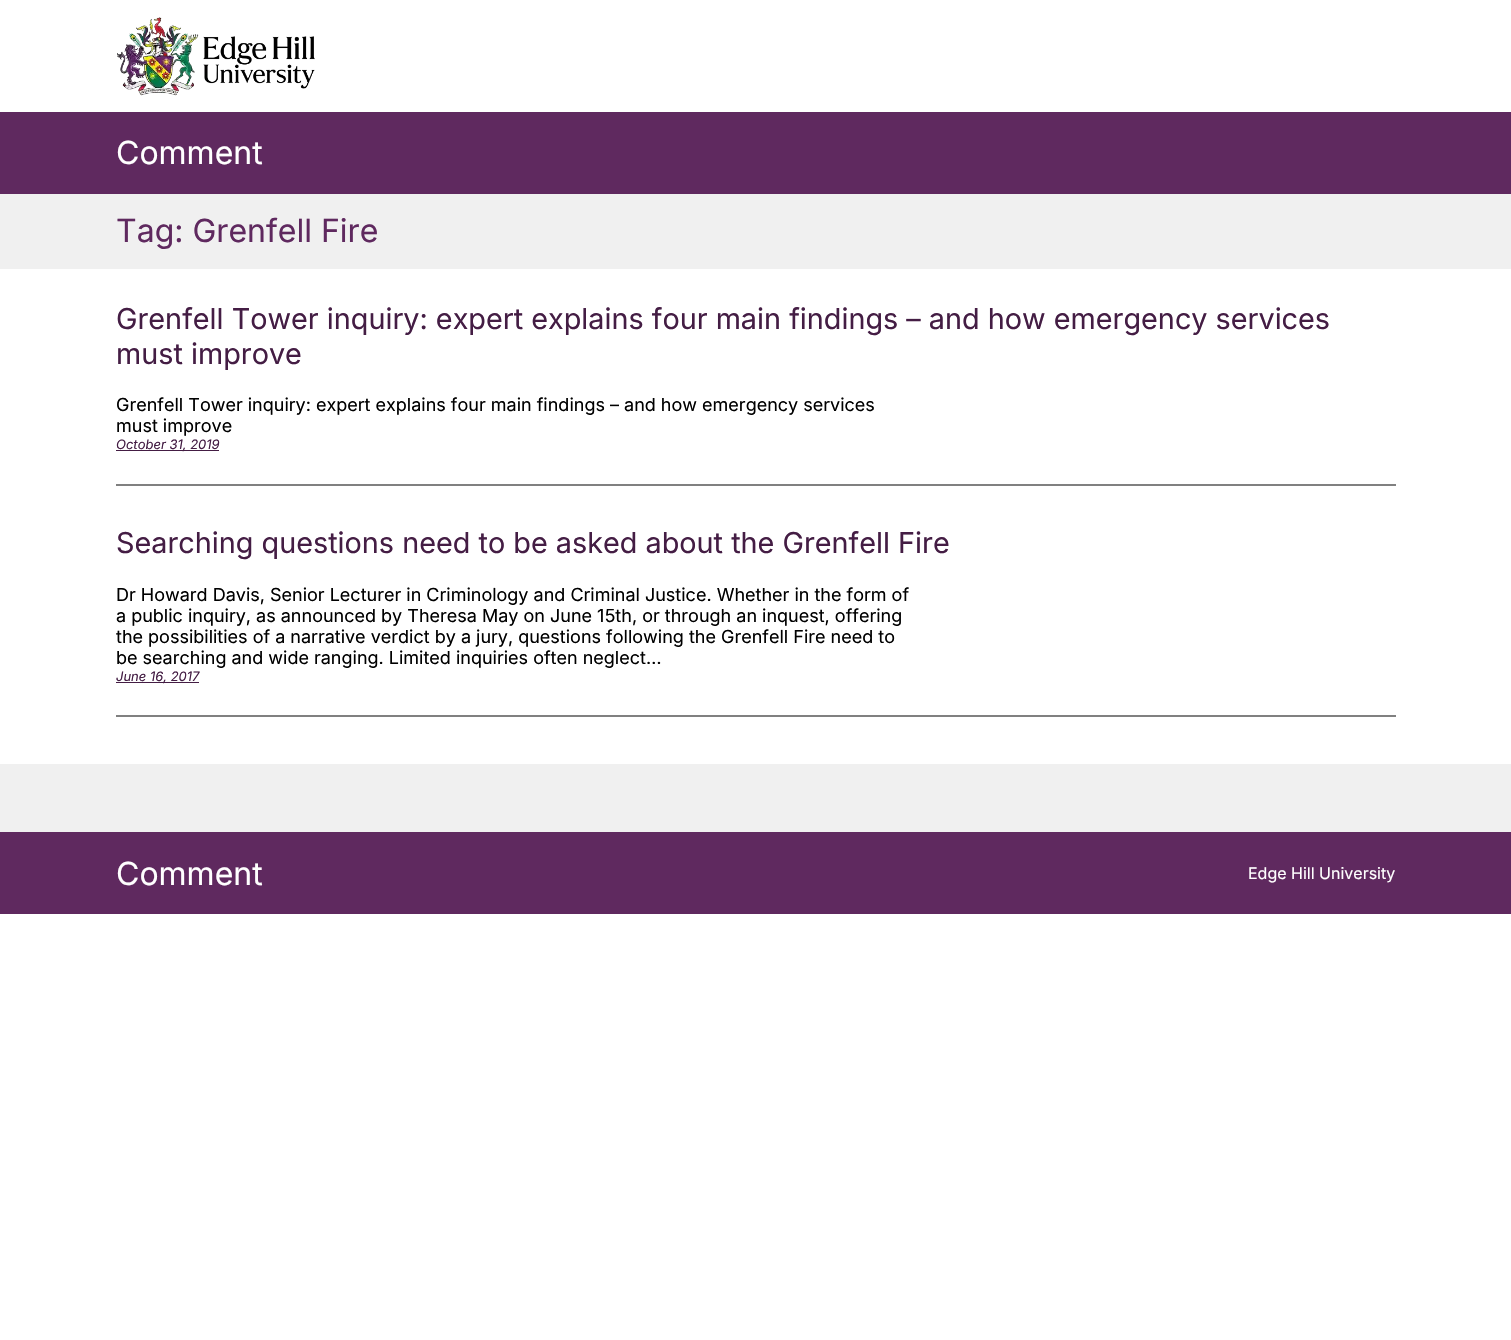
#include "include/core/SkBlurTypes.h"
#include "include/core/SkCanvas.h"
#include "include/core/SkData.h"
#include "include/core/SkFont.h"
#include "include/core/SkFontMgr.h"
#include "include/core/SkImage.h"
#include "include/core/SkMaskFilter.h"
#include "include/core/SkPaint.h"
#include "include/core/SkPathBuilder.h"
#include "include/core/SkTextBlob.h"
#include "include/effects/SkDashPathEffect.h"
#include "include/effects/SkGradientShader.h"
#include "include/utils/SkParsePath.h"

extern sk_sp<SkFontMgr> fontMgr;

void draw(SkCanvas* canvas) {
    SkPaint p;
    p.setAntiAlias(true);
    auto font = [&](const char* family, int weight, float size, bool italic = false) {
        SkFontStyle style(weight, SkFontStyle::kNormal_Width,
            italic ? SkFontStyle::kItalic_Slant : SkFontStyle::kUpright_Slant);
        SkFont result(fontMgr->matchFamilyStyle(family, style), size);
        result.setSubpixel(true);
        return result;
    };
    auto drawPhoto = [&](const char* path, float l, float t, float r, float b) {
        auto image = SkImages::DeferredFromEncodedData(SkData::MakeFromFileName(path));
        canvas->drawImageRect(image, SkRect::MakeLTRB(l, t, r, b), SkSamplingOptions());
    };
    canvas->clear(0xFFFFFFFF);
    drawPhoto("media/1.png", 117, 17, 315, 96);
    p.setColor(0xFF5F295F);
    canvas->drawRect(SkRect::MakeLTRB(0, 112, 1511, 194), p);
    auto font1 = font("Inter", 400, 32);
    p.setColor(0xFFFFFFFF);
    canvas->drawString("Comment", 116, 164, font1, p);
    p.setColor(0xFFF0F0F0);
    canvas->drawRect(SkRect::MakeLTRB(0, 194, 1511, 269), p);
    p.setColor(0xFF5F295F);
    canvas->drawString("Tag: Grenfell Fire", 116, 242, font1, p);
    auto font2 = font("Inter", 400, 28.8f);
    p.setColor(0xFF441D44);
    canvas->drawString("Grenfell Tower inquiry: expert explains four main findings – and how emergency services", 116, 329, font2, p);
    canvas->drawString("must improve", 116, 364, font2, p);
    auto font3 = font("Inter", 400, 18);
    p.setColor(0xFF000000);
    canvas->drawString("Grenfell Tower inquiry: expert explains four main findings – and how emergency services", 116, 411, font3, p);
    canvas->drawString("must improve", 116, 432, font3, p);
    p.setColor(0xFF441D44);
    canvas->drawRect(SkRect::MakeLTRB(116, 450, 219, 451), p);
    auto font4 = font("Inter", 400, 13, true);
    canvas->drawString("October 31, 2019", 116, 449, font4, p);
    p.setColor(0xFF808080);
    canvas->drawRect(SkRect::MakeLTRB(116, 484, 1396, 486), p);
    p.setColor(0xFF441D44);
    canvas->drawString("Searching questions need to be asked about the Grenfell Fire", 116, 553, font2, p);
    p.setColor(0xFF000000);
    {
        const struct { const char* s; float x, y; } items[] = {
            {"Dr Howard Davis, Senior Lecturer in Criminology and Criminal Justice. Whether in the form of", 116, 601},
            {"a public inquiry, as announced by Theresa May on June 15th, or through an inquest, offering", 116, 622},
            {"the possibilities of a narrative verdict by a jury, questions following the Grenfell Fire need to", 116, 643},
            {"be searching and wide ranging. Limited inquiries often neglect…", 116, 664},
        };
        for (auto [s, x, y] : items) {
            canvas->drawString(s, x, y, font3, p);
        }
    }
    p.setColor(0xFF441D44);
    canvas->drawRect(SkRect::MakeLTRB(116, 682, 199, 683), p);
    canvas->drawString("June 16, 2017", 116, 681, font4, p);
    {
        const struct { float l, t, r, b; SkColor color; } items[] = {
            {116, 715, 1396, 717, 0xFF808080},
            {0, 764, 1511, 832, 0xFFF0F0F0},
            {0, 832, 1511, 914, 0xFF5F295F},
        };
        for (auto [l, t, r, b, color] : items) {
            p.setColor(color);
            canvas->drawRect(SkRect::MakeLTRB(l, t, r, b), p);
        }
    }
    p.setColor(0xFFFFFFFF);
    canvas->drawString("Comment", 116, 885, font1, p);
    auto font5 = font("Inter", 400, 16);
    canvas->drawString("Edge Hill University", 1248, 879, font5, p);
}
